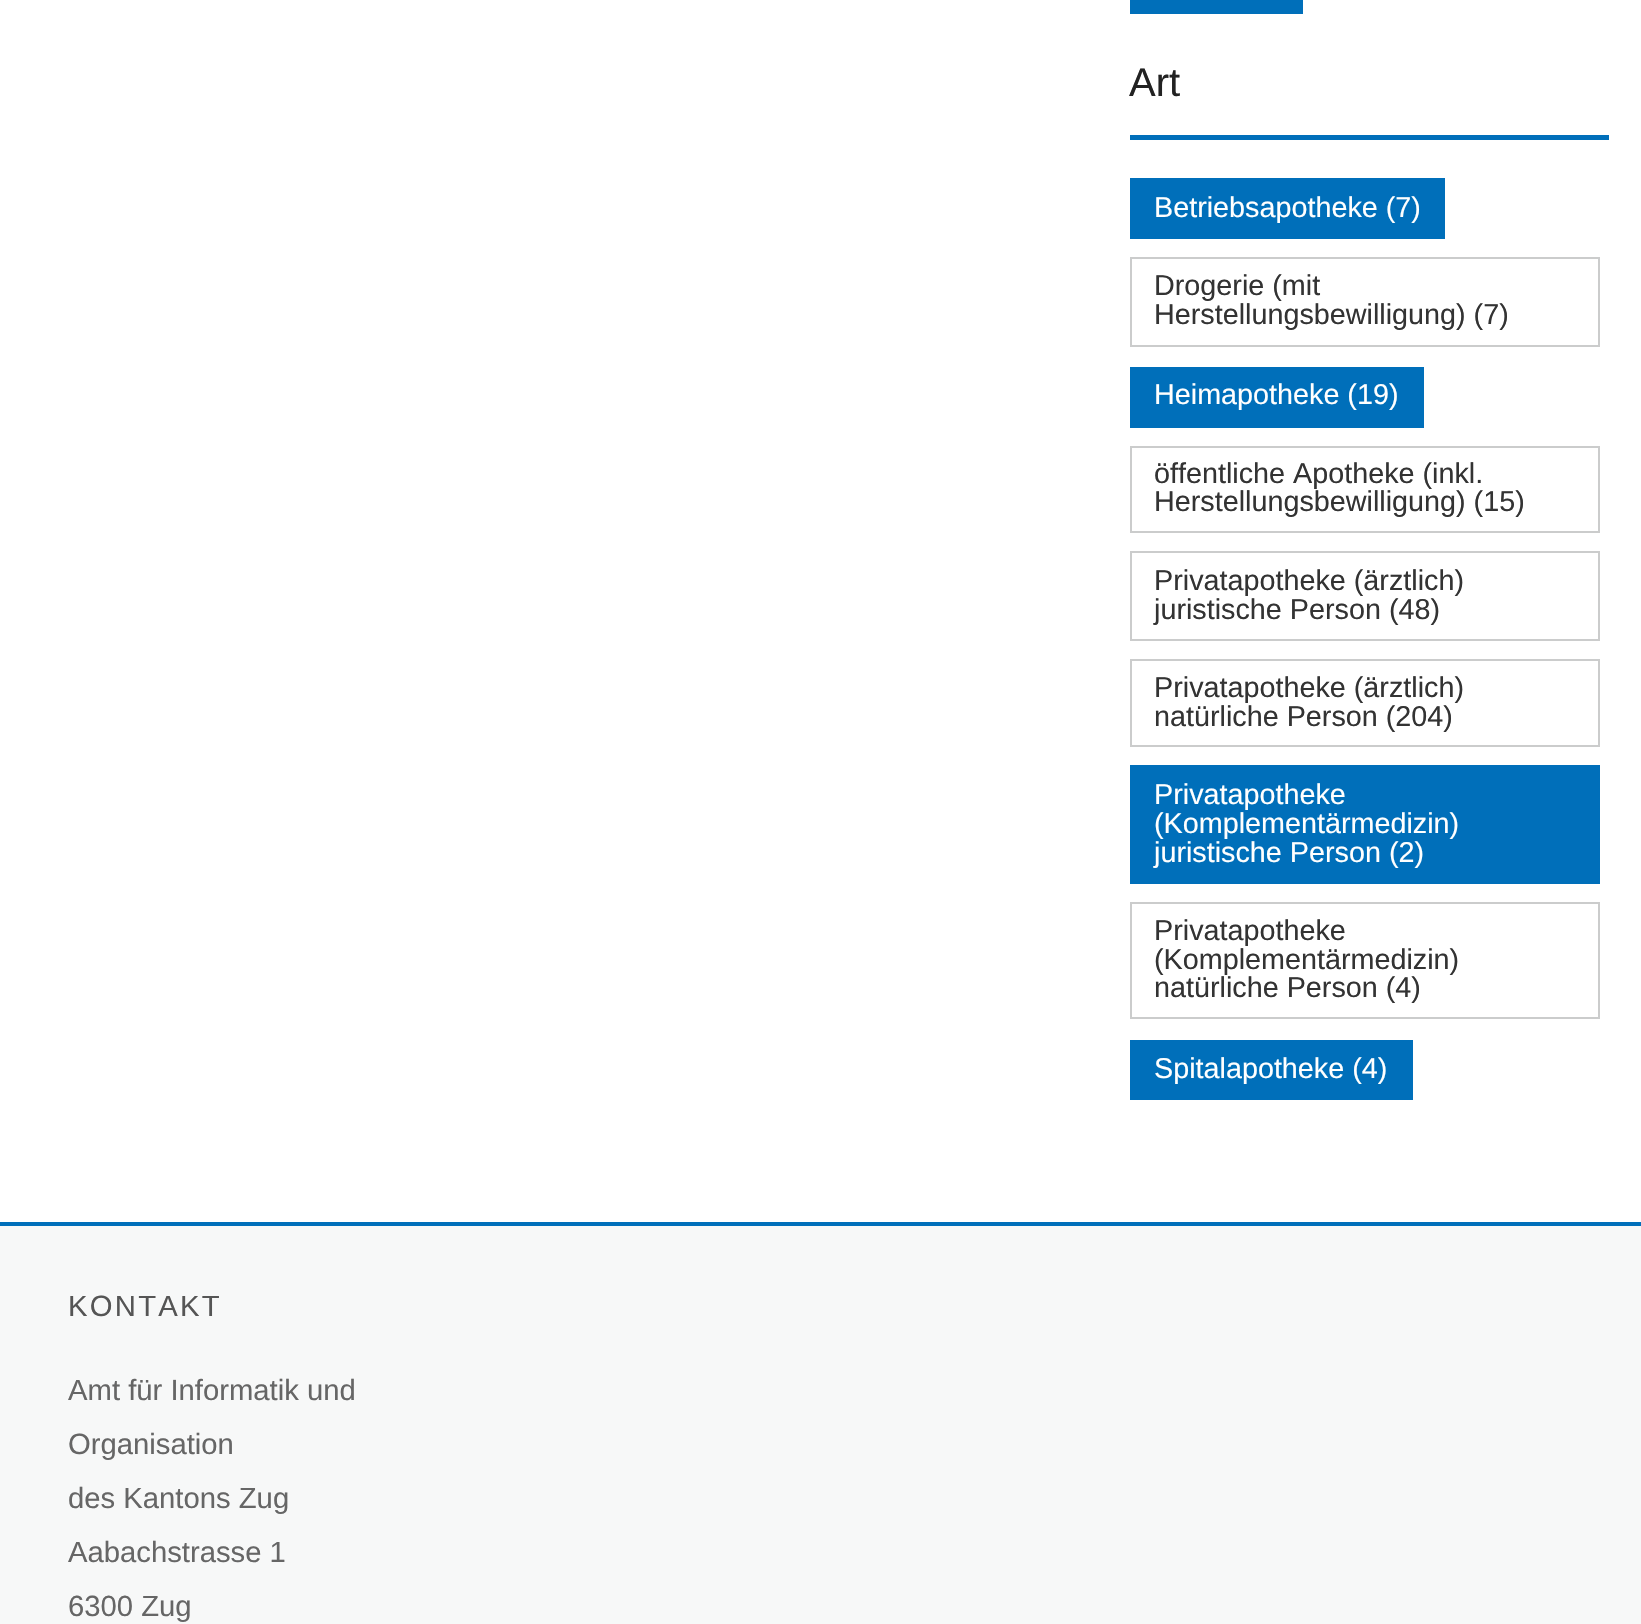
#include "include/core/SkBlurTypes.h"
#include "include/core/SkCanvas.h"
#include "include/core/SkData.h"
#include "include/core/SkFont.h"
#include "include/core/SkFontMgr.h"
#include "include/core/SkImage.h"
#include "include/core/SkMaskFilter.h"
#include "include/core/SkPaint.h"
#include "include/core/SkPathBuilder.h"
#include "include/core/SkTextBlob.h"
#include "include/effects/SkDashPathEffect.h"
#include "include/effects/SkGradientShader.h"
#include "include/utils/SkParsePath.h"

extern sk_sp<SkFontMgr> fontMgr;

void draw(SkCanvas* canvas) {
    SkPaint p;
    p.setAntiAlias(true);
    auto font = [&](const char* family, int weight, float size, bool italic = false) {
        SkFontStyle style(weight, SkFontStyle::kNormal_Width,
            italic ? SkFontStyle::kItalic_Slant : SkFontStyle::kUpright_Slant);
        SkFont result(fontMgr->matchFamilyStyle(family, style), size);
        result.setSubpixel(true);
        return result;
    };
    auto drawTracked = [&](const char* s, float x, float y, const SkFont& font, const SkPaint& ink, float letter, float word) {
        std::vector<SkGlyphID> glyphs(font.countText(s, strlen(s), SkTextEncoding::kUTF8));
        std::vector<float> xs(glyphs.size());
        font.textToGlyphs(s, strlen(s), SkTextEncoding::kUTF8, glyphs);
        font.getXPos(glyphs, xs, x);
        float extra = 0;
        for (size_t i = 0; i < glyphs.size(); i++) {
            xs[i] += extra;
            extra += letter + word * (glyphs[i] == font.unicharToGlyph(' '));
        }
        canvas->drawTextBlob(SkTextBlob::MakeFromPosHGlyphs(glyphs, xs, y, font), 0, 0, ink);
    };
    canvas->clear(0xFFFFFFFF);
    p.setColor(0xFF006FBA);
    canvas->drawRect(SkRect::MakeLTRB(1130, 0, 1303, 14), p);
    canvas->drawRect(SkRect::MakeLTRB(1130, 135, 1609, 140), p);
    auto font1 = font("Liberation Sans", 400, 40);
    p.setColor(0xFF222222);
    canvas->drawString("Art", 1129, 96, font1, p);
    p.setColor(0xFF006FBA);
    canvas->drawRect(SkRect::MakeLTRB(1130, 178, 1445, 239), p);
    auto font2 = font("Liberation Sans", 400, 28.75f);
    p.setColor(0xFFFFFFFF);
    canvas->drawString("Betriebsapotheke (7)", 1154, 217, font2, p);
    p.setStyle(SkPaint::kStroke_Style);
    p.setStrokeWidth(2);
    p.setColor(0xFFCBCCCC);
    canvas->drawRect(SkRect::MakeLTRB(1131, 258, 1599, 346), p);
    p.setStyle(SkPaint::kFill_Style);
    p.setColor(0xFF333333);
    canvas->drawString("Drogerie (mit", 1154, 295, font2, p);
    canvas->drawString("Herstellungsbewilligung) (7)", 1154, 324, font2, p);
    p.setColor(0xFF006FBA);
    canvas->drawRect(SkRect::MakeLTRB(1130, 367, 1424, 428), p);
    p.setColor(0xFFFFFFFF);
    canvas->drawString("Heimapotheke (19)", 1154, 404, font2, p);
    p.setStyle(SkPaint::kStroke_Style);
    p.setColor(0xFFCBCCCC);
    canvas->drawRect(SkRect::MakeLTRB(1131, 447, 1599, 532), p);
    p.setStyle(SkPaint::kFill_Style);
    p.setColor(0xFF333333);
    canvas->drawString("öffentliche Apotheke (inkl.", 1154, 483, font2, p);
    canvas->drawString("Herstellungsbewilligung) (15)", 1154, 511, font2, p);
    p.setStyle(SkPaint::kStroke_Style);
    p.setColor(0xFFCBCCCC);
    canvas->drawRect(SkRect::MakeLTRB(1131, 552, 1599, 640), p);
    p.setStyle(SkPaint::kFill_Style);
    p.setColor(0xFF333333);
    canvas->drawString("Privatapotheke (ärztlich)", 1154, 590, font2, p);
    canvas->drawString("juristische Person (48)", 1154, 619, font2, p);
    p.setStyle(SkPaint::kStroke_Style);
    p.setColor(0xFFCBCCCC);
    canvas->drawRect(SkRect::MakeLTRB(1131, 660, 1599, 746), p);
    p.setStyle(SkPaint::kFill_Style);
    p.setColor(0xFF333333);
    canvas->drawString("Privatapotheke (ärztlich)", 1154, 697, font2, p);
    canvas->drawString("natürliche Person (204)", 1154, 726, font2, p);
    p.setColor(0xFF006FBA);
    canvas->drawRect(SkRect::MakeLTRB(1130, 765, 1600, 884), p);
    p.setColor(0xFFFFFFFF);
    {
        const struct { const char* s; float x, y; } items[] = {
            {"Privatapotheke", 1154, 804},
            {"(Komplementärmedizin)", 1154, 833},
            {"juristische Person (2)", 1154, 862},
        };
        for (auto [s, x, y] : items) {
            canvas->drawString(s, x, y, font2, p);
        }
    }
    p.setStyle(SkPaint::kStroke_Style);
    p.setColor(0xFFCBCCCC);
    canvas->drawRect(SkRect::MakeLTRB(1131, 903, 1599, 1018), p);
    p.setStyle(SkPaint::kFill_Style);
    p.setColor(0xFF333333);
    {
        const struct { const char* s; float x, y; } items[] = {
            {"Privatapotheke", 1154, 940},
            {"(Komplementärmedizin)", 1154, 969},
            {"natürliche Person (4)", 1154, 997},
        };
        for (auto [s, x, y] : items) {
            canvas->drawString(s, x, y, font2, p);
        }
    }
    p.setColor(0xFF006FBA);
    canvas->drawRect(SkRect::MakeLTRB(1130, 1040, 1413, 1100), p);
    p.setColor(0xFFFFFFFF);
    canvas->drawString("Spitalapotheke (4)", 1154, 1078, font2, p);
    p.setColor(0xFF006FBA);
    canvas->drawPath(SkPathBuilder().moveTo(0, 1222).lineTo(0, 1226).lineTo(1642, 1226).lineTo(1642, 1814).lineTo(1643, 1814).lineTo(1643, 1222).close().detach(), p);
    p.setColor(0xFFF7F8F8);
    canvas->drawRect(SkRect::MakeLTRB(0, 1226, 1641, 1624), p);
    auto font3 = font("Liberation Sans", 400, 29.25f);
    p.setColor(0xFF555555);
    drawTracked("KONTAKT", 68, 1316, font3, p, 2.25f, 0);
    p.setColor(0xFF666666);
    {
        const struct { const char* s; float x, y; } items[] = {
            {"Amt für Informatik und", 68, 1400},
            {"Organisation", 68, 1454},
            {"des Kantons Zug", 68, 1508},
            {"Aabachstrasse 1", 68, 1562},
            {"6300 Zug", 68, 1616},
        };
        for (auto [s, x, y] : items) {
            canvas->drawString(s, x, y, font3, p);
        }
    }
}
